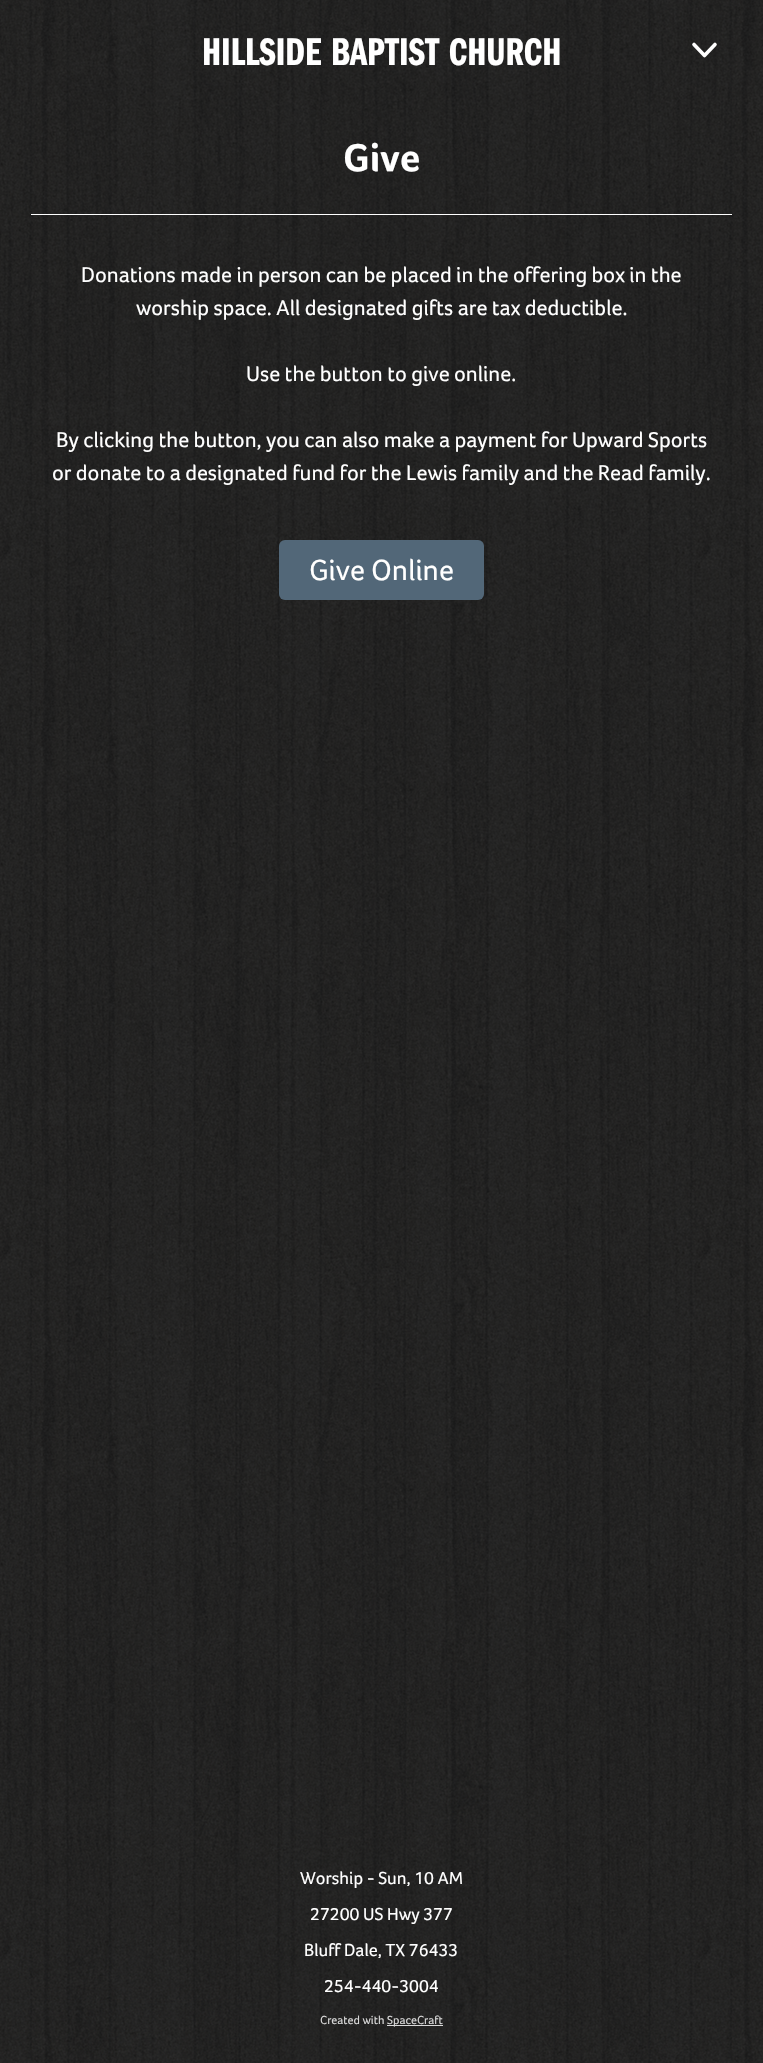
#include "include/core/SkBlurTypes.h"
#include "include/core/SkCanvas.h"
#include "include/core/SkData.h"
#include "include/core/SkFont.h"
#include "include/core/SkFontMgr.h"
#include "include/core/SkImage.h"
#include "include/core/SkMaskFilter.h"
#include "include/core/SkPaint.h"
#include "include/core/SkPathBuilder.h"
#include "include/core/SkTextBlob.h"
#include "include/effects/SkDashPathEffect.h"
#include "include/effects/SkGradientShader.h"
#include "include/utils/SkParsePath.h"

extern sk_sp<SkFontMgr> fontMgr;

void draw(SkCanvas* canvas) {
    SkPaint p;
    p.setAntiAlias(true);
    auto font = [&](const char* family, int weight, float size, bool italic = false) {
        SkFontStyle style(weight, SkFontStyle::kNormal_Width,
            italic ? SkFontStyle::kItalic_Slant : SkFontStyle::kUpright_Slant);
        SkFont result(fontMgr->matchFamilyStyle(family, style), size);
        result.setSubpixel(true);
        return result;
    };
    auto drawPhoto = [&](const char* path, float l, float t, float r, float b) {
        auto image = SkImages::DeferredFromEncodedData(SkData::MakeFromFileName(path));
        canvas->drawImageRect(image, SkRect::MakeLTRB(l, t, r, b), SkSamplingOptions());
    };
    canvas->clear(0xFFFFFFFF);
    drawPhoto("media/1.png", 0, 0, 763, 2063);
    auto font1 = font("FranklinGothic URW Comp", 600, 40);
    p.setColor(0xFFFFFFFF);
    canvas->drawString("HILLSIDE BAPTIST CHURCH", 202, 65, font1, p);
    p.setStyle(SkPaint::kStroke_Style);
    p.setStrokeWidth(3.6f);
    p.setStrokeCap(SkPaint::kRound_Cap);
    canvas->drawPath(SkPathBuilder().moveTo(694, 44.5f).lineTo(704.5f, 55.5f).moveTo(704.5f, 55.5f).lineTo(715, 44.5f).detach(), p);
    auto font2 = font("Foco", 700, 40);
    p.setStyle(SkPaint::kFill_Style);
    canvas->drawString("Give", 343, 171, font2, p);
    canvas->drawRect(SkRect::MakeLTRB(31, 214, 732, 215), p);
    auto font3 = font("Foco", 400, 22);
    {
        const struct { const char* s; float x, y; } items[] = {
            {"Donations made in person can be placed in the offering box in the", 81, 282},
            {"worship space. All designated gifts are tax deductible.", 136, 315},
            {"Use the button to give online.", 246, 381},
            {"By clicking the button, you can also make a payment for Upward Sports", 56, 447},
            {"or donate to a designated fund for the Lewis family and the Read family.", 52, 480},
        };
        for (auto [s, x, y] : items) {
            canvas->drawString(s, x, y, font3, p);
        }
    }
    p.setColor(0xFF526778);
    canvas->drawRoundRect(SkRect::MakeLTRB(279, 540, 484, 600), 6, 6, p);
    auto font4 = font("Foco", 400, 30);
    p.setColor(0xFFFFFFFF);
    canvas->drawString("Give Online", 309, 580, font4, p);
    auto font5 = font("Foco", 400, 18);
    {
        const struct { const char* s; float x, y; } items[] = {
            {"Worship - Sun, 10 AM", 300, 1884},
            {"27200 US Hwy 377", 310, 1920},
            {"Bluff Dale, TX 76433", 304, 1956},
            {"254-440-3004", 324, 1992},
        };
        for (auto [s, x, y] : items) {
            canvas->drawString(s, x, y, font5, p);
        }
    }
    auto font6 = font("Foco", 400, 12);
    p.setColor(0xFFD9D9D9);
    canvas->drawString("Created with", 320, 2024, font6, p);
    canvas->drawRect(SkRect::MakeLTRB(387, 2025, 443, 2026), p);
    canvas->drawString("SpaceCraft", 387, 2024, font6, p);
}
